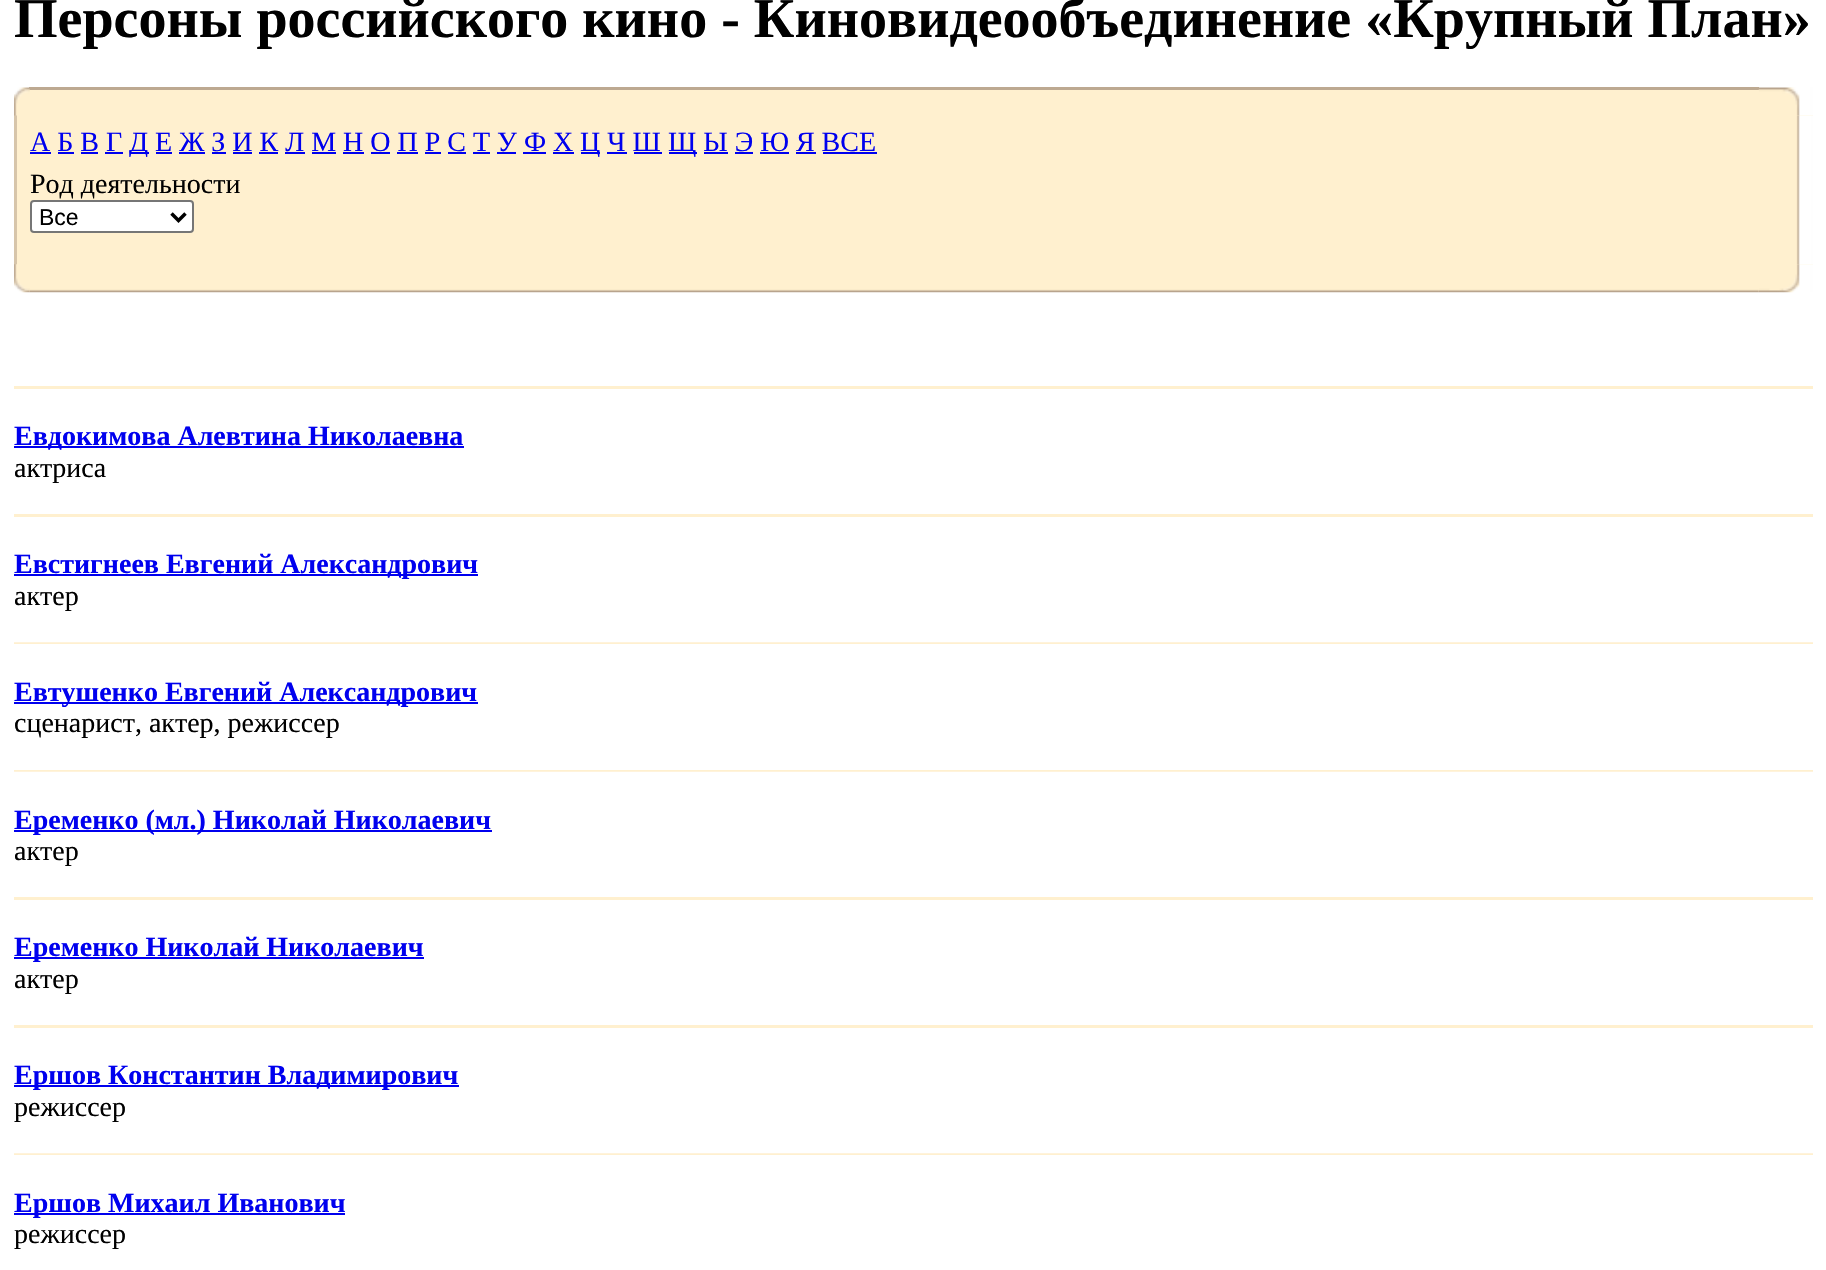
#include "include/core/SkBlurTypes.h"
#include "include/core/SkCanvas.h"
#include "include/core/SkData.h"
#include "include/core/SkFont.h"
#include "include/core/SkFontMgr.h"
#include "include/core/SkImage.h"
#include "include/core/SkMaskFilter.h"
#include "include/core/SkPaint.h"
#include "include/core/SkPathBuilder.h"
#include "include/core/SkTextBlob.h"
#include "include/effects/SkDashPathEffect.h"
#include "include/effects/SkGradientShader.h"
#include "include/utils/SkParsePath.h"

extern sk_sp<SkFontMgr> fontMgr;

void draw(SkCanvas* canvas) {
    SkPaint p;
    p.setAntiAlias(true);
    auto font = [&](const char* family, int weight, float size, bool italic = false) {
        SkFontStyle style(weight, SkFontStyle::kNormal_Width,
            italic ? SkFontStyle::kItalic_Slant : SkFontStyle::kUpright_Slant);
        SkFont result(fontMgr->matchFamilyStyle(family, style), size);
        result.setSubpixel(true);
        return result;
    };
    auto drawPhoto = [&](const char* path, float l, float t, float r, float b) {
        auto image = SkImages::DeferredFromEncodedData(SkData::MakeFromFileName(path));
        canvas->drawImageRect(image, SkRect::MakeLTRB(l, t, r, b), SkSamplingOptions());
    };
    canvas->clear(0xFFFFFFFF);
    auto font1 = font("Liberation Serif", 700, 56);
    p.setColor(0xFF000000);
    canvas->drawString("Персоны российского кино - Киновидеообъединение «Крупный План»", 14, 37, font1, p);
    {
        const struct { float l, t, r, b; SkColor color; } items[] = {
            {17, 90, 1813, 292, 0xFFFFF0CF},
            {29, 87, 1759, 90, 0xFFBDA991},
            {14, 115, 17, 265, 0xFFD7C5AA},
        };
        for (auto [l, t, r, b, color] : items) {
            p.setColor(color);
            canvas->drawRect(SkRect::MakeLTRB(l, t, r, b), p);
        }
    }
    drawPhoto("media/1.png", 14, 87, 30, 116);
    drawPhoto("media/3.png", 1796, 115, 1813, 265);
    drawPhoto("media/2.png", 1758, 87, 1813, 116);
    auto font2 = font("Liberation Serif", 400, 28);
    p.setColor(0xFF0000EE);
    canvas->drawString("А Б В Г", 30, 151, font2, p);
    canvas->drawRect(SkRect::MakeLTRB(30, 152, 51, 154), p);
    canvas->drawRect(SkRect::MakeLTRB(130, 152, 149, 154), p);
    canvas->drawString("Д Е Ж З И К Л М Н О П Р С Т У Ф Х", 129, 151, font2, p);
    canvas->drawRect(SkRect::MakeLTRB(581, 152, 600, 154), p);
    canvas->drawString("Ц Ч Ш", 580, 151, font2, p);
    canvas->drawRect(SkRect::MakeLTRB(669, 152, 697, 154), p);
    canvas->drawString("Щ Ы Э Ю Я ВСЕ", 668, 151, font2, p);
    {
        const struct { float l, t, r, b; SkColor color; } items[] = {
            {58, 152, 74, 154, 0xFF0000EE},
            {81, 152, 98, 154, 0xFF0000EE},
            {105, 152, 123, 154, 0xFF0000EE},
            {156, 152, 172, 154, 0xFF0000EE},
            {179, 152, 205, 154, 0xFF0000EE},
            {212, 152, 226, 154, 0xFF0000EE},
            {233, 152, 252, 154, 0xFF0000EE},
            {259, 152, 278, 154, 0xFF0000EE},
            {285, 152, 305, 154, 0xFF0000EE},
            {312, 152, 336, 154, 0xFF0000EE},
            {343, 152, 364, 154, 0xFF0000EE},
            {371, 152, 390, 154, 0xFF0000EE},
            {397, 152, 418, 154, 0xFF0000EE},
            {425, 152, 441, 154, 0xFF0000EE},
            {448, 152, 466, 154, 0xFF0000EE},
            {473, 152, 490, 154, 0xFF0000EE},
            {497, 152, 516, 154, 0xFF0000EE},
            {523, 152, 546, 154, 0xFF0000EE},
            {553, 152, 574, 154, 0xFF0000EE},
            {607, 152, 627, 154, 0xFF0000EE},
            {634, 152, 662, 154, 0xFF0000EE},
            {704, 152, 728, 154, 0xFF0000EE},
            {735, 152, 753, 154, 0xFF0000EE},
            {760, 152, 789, 154, 0xFF0000EE},
            {796, 152, 816, 154, 0xFF0000EE},
            {823, 152, 877, 154, 0xFF0000EE},
        };
        for (auto [l, t, r, b, color] : items) {
            p.setColor(color);
            canvas->drawRect(SkRect::MakeLTRB(l, t, r, b), p);
        }
    }
    p.setColor(0xFF000000);
    canvas->drawString("Род деятельности", 30, 193, font2, p);
    p.setColor(0xFFFFFFFF);
    canvas->drawRoundRect(SkRect::MakeLTRB(31, 201, 193, 232), 3, 3, p);
    p.setStyle(SkPaint::kStroke_Style);
    p.setStrokeWidth(2);
    p.setColor(0xFF767676);
    canvas->drawRoundRect(SkRect::MakeLTRB(31, 201, 193, 232), 3, 3, p);
    p.setStrokeWidth(3.5f);
    p.setColor(0xFF000000);
    canvas->drawPath(SkPathBuilder().moveTo(171.5f, 213.5f).lineTo(178.5f, 220.5f).lineTo(185.5f, 213.5f).detach(), p);
    auto font3 = font("Liberation Sans", 400, 23);
    p.setStyle(SkPaint::kFill_Style);
    canvas->drawString("Все", 39, 225, font3, p);
    drawPhoto("media/5.png", 29, 289, 1759, 293);
    drawPhoto("media/4.png", 14, 264, 30, 293);
    drawPhoto("media/6.png", 1758, 264, 1813, 293);
    p.setColor(0xFFFFF0CF);
    canvas->drawRect(SkRect::MakeLTRB(14, 386, 1813, 389), p);
    p.setColor(0xFF0000EE);
    canvas->drawRect(SkRect::MakeLTRB(14, 446, 464, 448), p);
    auto font4 = font("Liberation Serif", 700, 28);
    canvas->drawString("Евдокимова Алевтина Николаевна", 14, 445, font4, p);
    p.setColor(0xFF000000);
    canvas->drawString("актриса", 14, 477, font2, p);
    p.setColor(0xFFFFF0CF);
    canvas->drawRect(SkRect::MakeLTRB(14, 514, 1813, 517), p);
    p.setColor(0xFF0000EE);
    canvas->drawRect(SkRect::MakeLTRB(14, 574, 478, 576), p);
    canvas->drawString("Евстигнеев Евгений Александрович", 14, 573, font4, p);
    p.setColor(0xFF000000);
    canvas->drawString("актер", 14, 605, font2, p);
    drawPhoto("media/7.png", 14, 642, 1813, 644);
    p.setColor(0xFF0000EE);
    canvas->drawRect(SkRect::MakeLTRB(14, 702, 478, 704), p);
    canvas->drawString("Евтушенко Евгений Александрович", 14, 701, font4, p);
    p.setColor(0xFF000000);
    canvas->drawString("сценарист, актер, режисcер", 14, 732, font2, p);
    drawPhoto("media/8.png", 14, 770, 1813, 772);
    p.setColor(0xFF0000EE);
    canvas->drawRect(SkRect::MakeLTRB(14, 830, 492, 832), p);
    canvas->drawString("Еременко (мл.) Николай Николаевич", 14, 829, font4, p);
    p.setColor(0xFF000000);
    canvas->drawString("актер", 14, 860, font2, p);
    p.setColor(0xFFFFF0CF);
    canvas->drawRect(SkRect::MakeLTRB(14, 897, 1813, 900), p);
    p.setColor(0xFF0000EE);
    canvas->drawRect(SkRect::MakeLTRB(14, 957, 424, 959), p);
    canvas->drawString("Еременко Николай Николаевич", 14, 956, font4, p);
    p.setColor(0xFF000000);
    canvas->drawString("актер", 14, 988, font2, p);
    p.setColor(0xFFFFF0CF);
    canvas->drawRect(SkRect::MakeLTRB(14, 1025, 1813, 1028), p);
    p.setColor(0xFF0000EE);
    canvas->drawRect(SkRect::MakeLTRB(14, 1085, 459, 1087), p);
    canvas->drawString("Ершов Константин Владимирович", 14, 1084, font4, p);
    p.setColor(0xFF000000);
    canvas->drawString("режисcер", 14, 1116, font2, p);
    drawPhoto("media/7.png", 14, 1153, 1813, 1155);
    p.setColor(0xFF0000EE);
    canvas->drawRect(SkRect::MakeLTRB(14, 1213, 345, 1215), p);
    canvas->drawString("Ершов Михаил Иванович", 14, 1212, font4, p);
    p.setColor(0xFF000000);
    canvas->drawString("режисcер", 14, 1243, font2, p);
}
